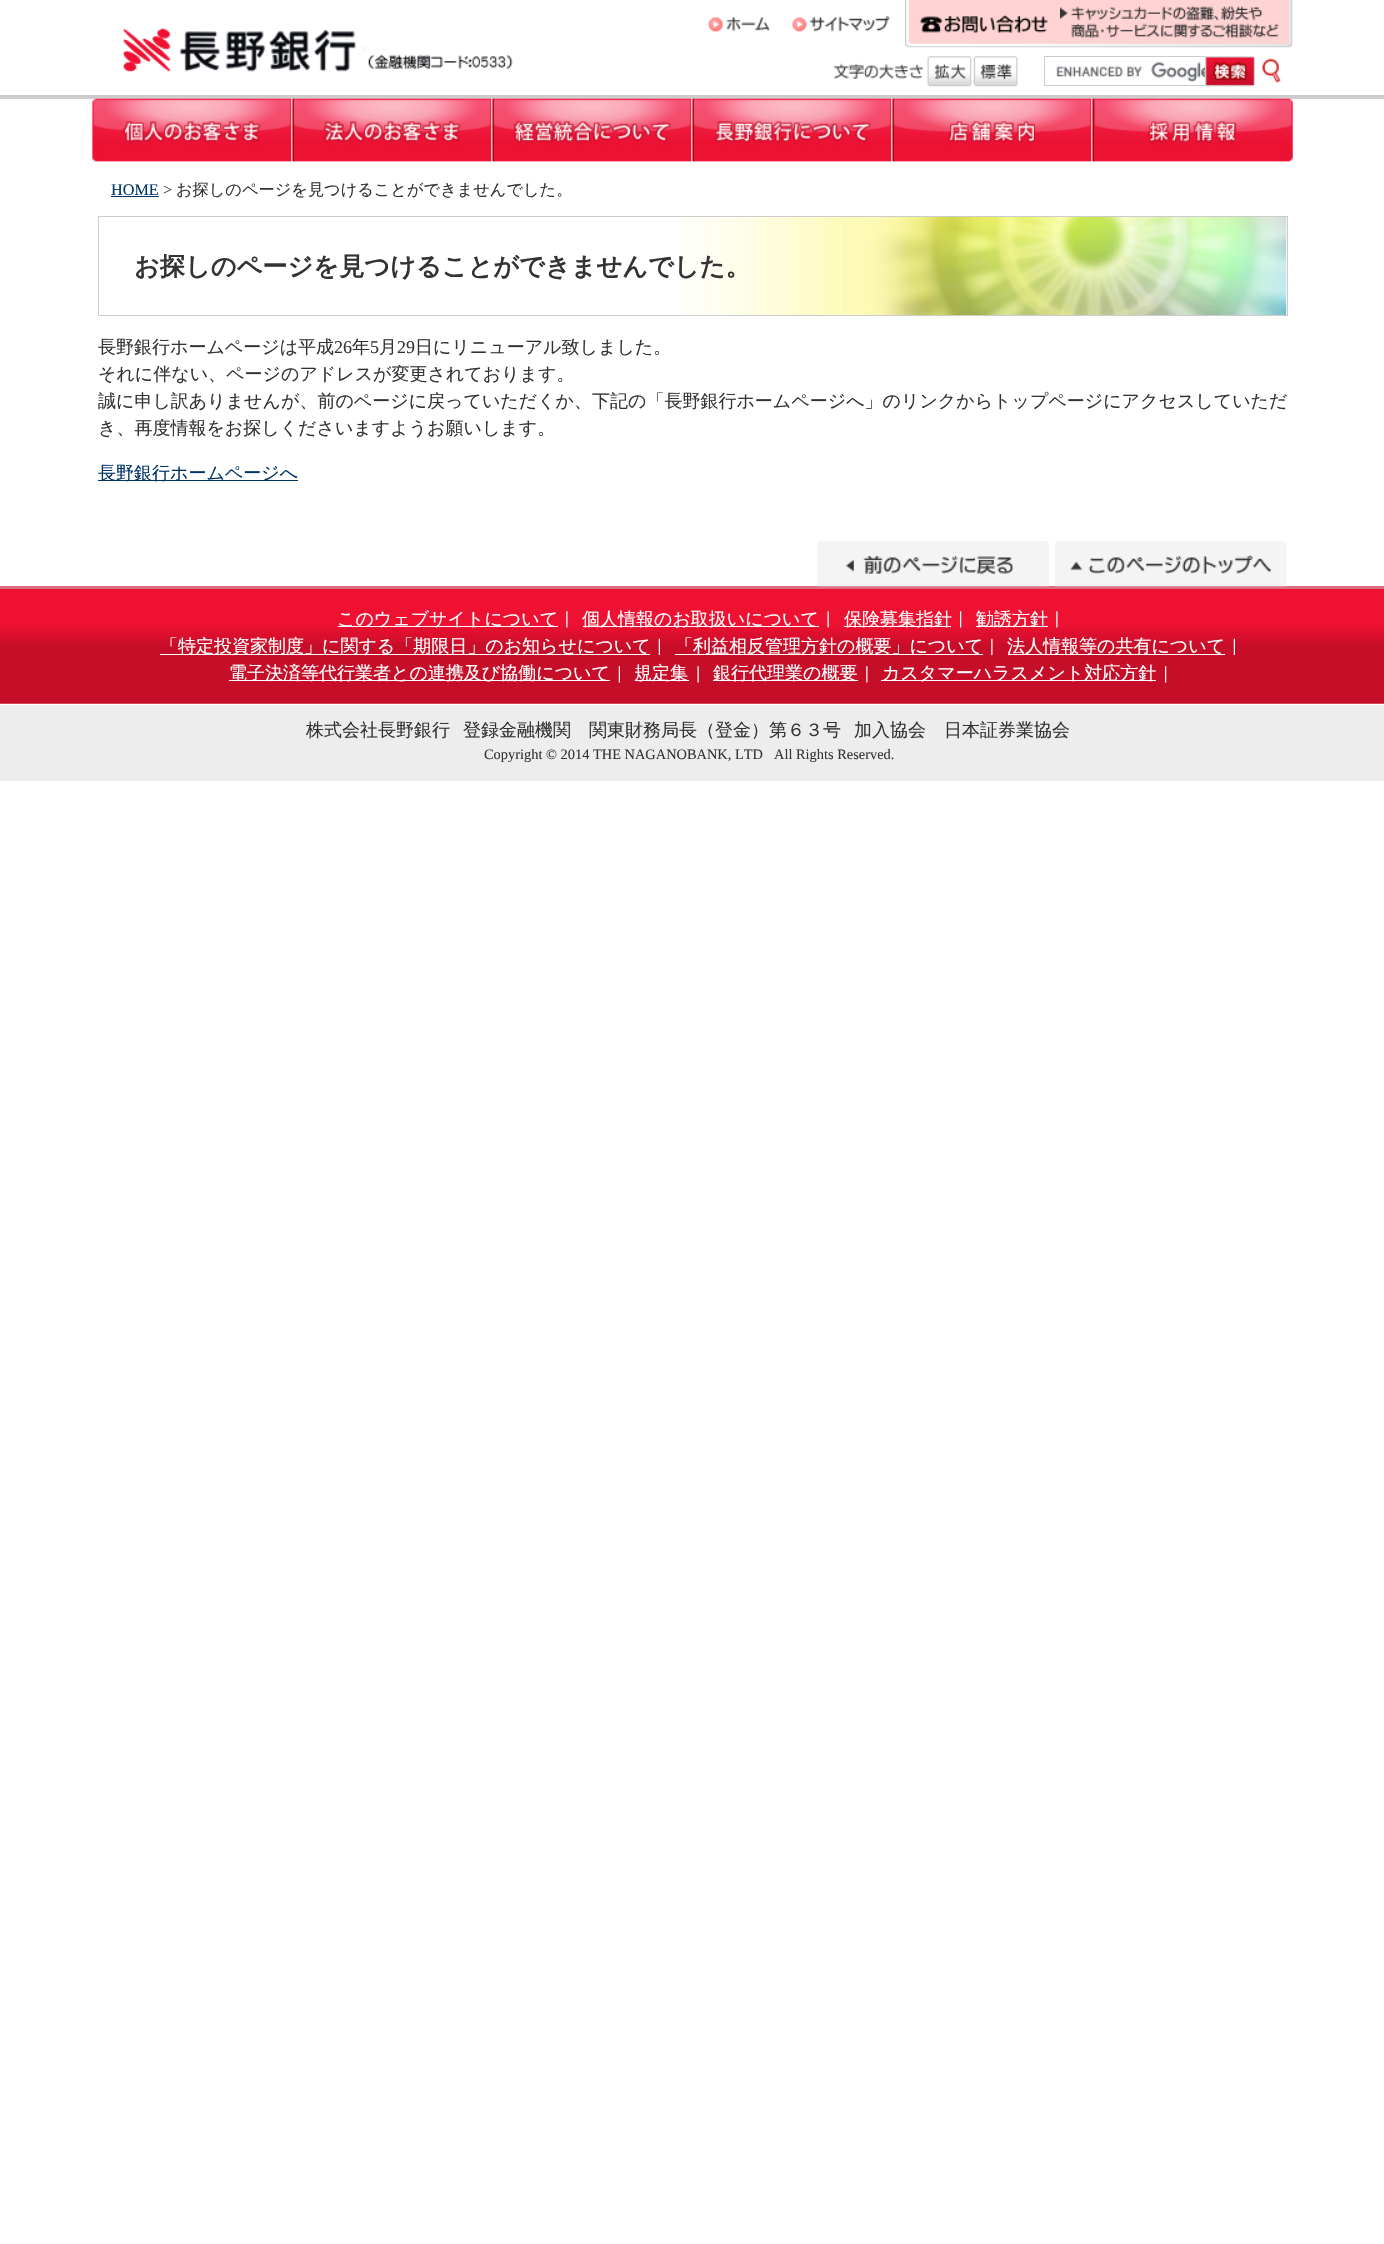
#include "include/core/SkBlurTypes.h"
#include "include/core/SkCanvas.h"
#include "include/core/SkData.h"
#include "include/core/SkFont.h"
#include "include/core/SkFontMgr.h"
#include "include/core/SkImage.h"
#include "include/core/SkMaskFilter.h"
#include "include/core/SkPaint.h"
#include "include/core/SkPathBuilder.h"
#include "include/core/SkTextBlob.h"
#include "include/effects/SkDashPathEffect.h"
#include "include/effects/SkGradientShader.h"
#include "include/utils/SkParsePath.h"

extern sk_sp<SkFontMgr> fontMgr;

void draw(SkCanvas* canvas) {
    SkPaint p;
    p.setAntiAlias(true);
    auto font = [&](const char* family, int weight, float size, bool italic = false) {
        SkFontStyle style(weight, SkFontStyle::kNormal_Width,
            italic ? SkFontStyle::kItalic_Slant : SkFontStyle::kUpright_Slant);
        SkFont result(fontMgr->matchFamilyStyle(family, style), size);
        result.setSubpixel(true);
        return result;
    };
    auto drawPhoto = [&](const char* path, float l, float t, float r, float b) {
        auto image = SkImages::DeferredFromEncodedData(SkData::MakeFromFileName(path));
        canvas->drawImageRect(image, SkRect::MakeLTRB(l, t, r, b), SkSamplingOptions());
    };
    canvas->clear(0xFFFFFFFF);
    drawPhoto("media/1.png", 123, 28, 513, 72);
    drawPhoto("media/2.png", 708, 17, 771, 32);
    drawPhoto("media/3.png", 792, 16, 891, 32);
    drawPhoto("media/4.png", 905, 0, 1060, 48);
    drawPhoto("media/5.png", 1060, 0, 1293, 48);
    drawPhoto("media/6.png", 833, 63, 924, 79);
    drawPhoto("media/7.png", 927, 56, 972, 87);
    drawPhoto("media/8.png", 973, 56, 1018, 87);
    drawPhoto("media/9.png", 1262, 58, 1282, 83);
    drawPhoto("media/10.png", 1056, 62, 1207, 82);
    p.setStyle(SkPaint::kStroke_Style);
    p.setStrokeWidth(1);
    p.setColor(0xFFCCCCCC);
    canvas->drawRect(SkRect::MakeLTRB(1044.5f, 56.5f, 1205.5f, 85.5f), p);
    drawPhoto("media/11.png", 1206, 56, 1255, 87);
    p.setStyle(SkPaint::kFill_Style);
    canvas->drawRect(SkRect::MakeLTRB(0, 95, 1384, 99), p);
    drawPhoto("media/12.png", 92, 98, 293, 162);
    drawPhoto("media/14.png", 292, 98, 493, 162);
    drawPhoto("media/13.png", 92, 98, 293, 162);
    drawPhoto("media/16.png", 492, 98, 693, 162);
    drawPhoto("media/15.png", 292, 98, 493, 162);
    drawPhoto("media/18.png", 692, 98, 893, 162);
    drawPhoto("media/17.png", 492, 98, 693, 162);
    drawPhoto("media/20.png", 892, 98, 1093, 162);
    drawPhoto("media/19.png", 692, 98, 893, 162);
    drawPhoto("media/22.png", 1092, 98, 1293, 162);
    drawPhoto("media/21.png", 892, 98, 1093, 162);
    drawPhoto("media/23.png", 1092, 98, 1293, 162);
    auto font1 = font("Liberation Serif", 400, 16.2f);
    p.setColor(0xFF003366);
    canvas->drawString("HOME", 111, 195, font1, p);
    canvas->drawRect(SkRect::MakeLTRB(111, 196, 159, 197), p);
    p.setColor(0xFF333333);
    canvas->drawString(">", 163, 195, font1, p);
    auto font2 = font("WenQuanYi Zen Hei", 500, 16.2f);
    canvas->drawString("お探しのページを見つけることができませんでした。", 176, 195, font2, p);
    drawPhoto("media/24.png", 681, 217, 1287, 315);
    p.setStyle(SkPaint::kStroke_Style);
    p.setColor(0xFFCCCCCC);
    canvas->drawRect(SkRect::MakeLTRB(98.5f, 216.5f, 1287.5f, 315.5f), p);
    auto font3 = font("WenQuanYi Zen Hei", 700, 25.2f);
    p.setStyle(SkPaint::kFill_Style);
    p.setColor(0xFF333333);
    canvas->drawString("お探しのページを見つけることができませんでした。", 134, 275, font3, p);
    auto font4 = font("WenQuanYi Zen Hei", 500, 18);
    canvas->drawString("長野銀行ホームページは平成", 98, 353, font4, p);
    auto font5 = font("Liberation Serif", 400, 18);
    canvas->drawString("26", 334, 353, font5, p);
    canvas->drawString("年", 352, 353, font4, p);
    canvas->drawString("5", 370, 353, font5, p);
    canvas->drawString("月", 379, 353, font4, p);
    canvas->drawString("29", 397, 353, font5, p);
    {
        const struct { const char* s; float x, y; } items[] = {
            {"日にリニューアル致しました。", 415, 353},
            {"それに伴ない、ページのアドレスが変更されております。", 98, 380},
            {"誠に申し訳ありませんが、前のページに戻っていただくか、下記の「長野銀行ホームページへ」のリンクからトップページにアクセスしていただ", 98, 407},
            {"き、再度情報をお探しくださいますようお願いします。", 98, 434},
        };
        for (auto [s, x, y] : items) {
            canvas->drawString(s, x, y, font4, p);
        }
    }
    p.setColor(0xFF003366);
    canvas->drawRect(SkRect::MakeLTRB(98, 480, 298, 481), p);
    canvas->drawString("長野銀行ホームページへ", 98, 479, font4, p);
    drawPhoto("media/25.png", 817, 541, 1049, 586);
    p.setColor(0xFFDD6E7F);
    canvas->drawRect(SkRect::MakeLTRB(0, 586, 1384, 589), p);
    drawPhoto("media/26.png", 817, 541, 1049, 587);
    drawPhoto("media/27.png", 1055, 541, 1287, 586);
    drawPhoto("media/28.png", 1055, 541, 1287, 587);
    p.setColor(0xFFEDEDED);
    canvas->drawRect(SkRect::MakeLTRB(0, 705, 1384, 781), p);
    p.setColor(0xFFEE1132);
    canvas->drawRect(SkRect::MakeLTRB(0, 589, 1384, 627), p);
    drawPhoto("media/29.png", 0, 627, 1384, 705);
    drawPhoto("media/30.png", 566, 611, 568, 628);
    p.setColor(0xFFFFFFFF);
    canvas->drawRect(SkRect::MakeLTRB(338, 626, 558, 627), p);
    canvas->drawString("このウェブサイトについて", 337, 625, font4, p);
    drawPhoto("media/31.png", 827, 611, 829, 628);
    canvas->drawRect(SkRect::MakeLTRB(583, 626, 819, 627), p);
    canvas->drawString("個人情報のお取扱いについて", 582, 625, font4, p);
    drawPhoto("media/32.png", 960, 611, 962, 628);
    canvas->drawRect(SkRect::MakeLTRB(844, 626, 951, 627), p);
    canvas->drawString("保険募集指針", 844, 625, font4, p);
    drawPhoto("media/30.png", 1056, 611, 1058, 628);
    canvas->drawRect(SkRect::MakeLTRB(976, 626, 1048, 627), p);
    canvas->drawString("勧誘方針", 976, 625, font4, p);
    drawPhoto("media/33.png", 658, 638, 660, 655);
    canvas->drawRect(SkRect::MakeLTRB(160, 654, 650, 655), p);
    canvas->drawString("「特定投資家制度」に関する「期限日」のお知らせについて", 160, 652, font4, p);
    drawPhoto("media/34.png", 991, 638, 993, 655);
    canvas->drawRect(SkRect::MakeLTRB(675, 654, 983, 655), p);
    canvas->drawString("「利益相反管理方針の概要」について", 675, 652, font4, p);
    drawPhoto("media/33.png", 1233, 638, 1235, 655);
    canvas->drawRect(SkRect::MakeLTRB(1008, 654, 1225, 655), p);
    canvas->drawString("法人情報等の共有について", 1007, 652, font4, p);
    drawPhoto("media/35.png", 618, 666, 620, 683);
    canvas->drawRect(SkRect::MakeLTRB(229, 680, 610, 681), p);
    canvas->drawString("電子決済等代行業者との連携及び協働について", 229, 679, font4, p);
    drawPhoto("media/36.png", 697, 666, 699, 683);
    canvas->drawRect(SkRect::MakeLTRB(635, 680, 689, 681), p);
    canvas->drawString("規定集", 634, 679, font4, p);
    drawPhoto("media/37.png", 866, 666, 868, 683);
    canvas->drawRect(SkRect::MakeLTRB(713, 680, 858, 681), p);
    canvas->drawString("銀行代理業の概要", 713, 679, font4, p);
    drawPhoto("media/38.png", 1165, 666, 1167, 683);
    canvas->drawRect(SkRect::MakeLTRB(881, 680, 1156, 681), p);
    canvas->drawString("カスタマーハラスメント対応方針", 882, 679, font4, p);
    p.setColor(0xFF333333);
    {
        const struct { const char* s; float x, y; } items[] = {
            {"株式会社長野銀行", 306, 736},
            {"登録金融機関　関東財務局長（登金）第６３号", 463, 736},
            {"加入協会　日本証券業協会", 854, 736},
        };
        for (auto [s, x, y] : items) {
            canvas->drawString(s, x, y, font4, p);
        }
    }
    auto font6 = font("Liberation Serif", 400, 14.4f);
    canvas->drawString("Copyright © 2014 THE NAGANOBANK, LTD", 484, 759, font6, p);
    canvas->drawString("All Rights Reserved.", 774, 759, font6, p);
}
